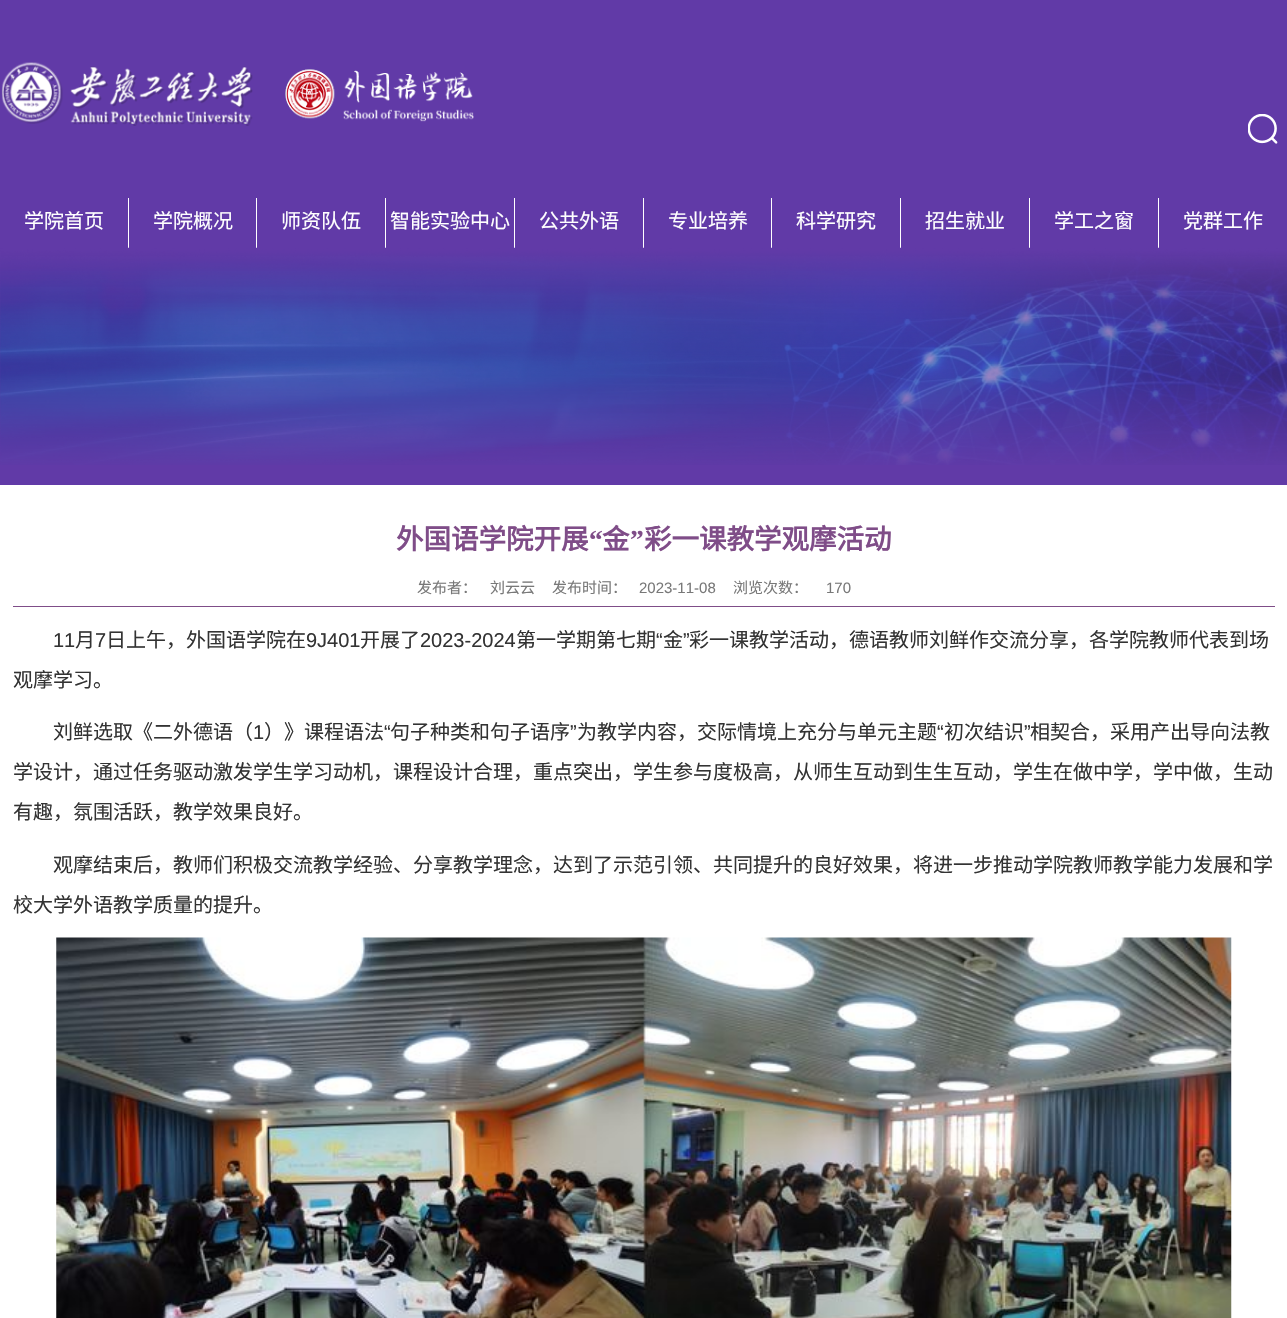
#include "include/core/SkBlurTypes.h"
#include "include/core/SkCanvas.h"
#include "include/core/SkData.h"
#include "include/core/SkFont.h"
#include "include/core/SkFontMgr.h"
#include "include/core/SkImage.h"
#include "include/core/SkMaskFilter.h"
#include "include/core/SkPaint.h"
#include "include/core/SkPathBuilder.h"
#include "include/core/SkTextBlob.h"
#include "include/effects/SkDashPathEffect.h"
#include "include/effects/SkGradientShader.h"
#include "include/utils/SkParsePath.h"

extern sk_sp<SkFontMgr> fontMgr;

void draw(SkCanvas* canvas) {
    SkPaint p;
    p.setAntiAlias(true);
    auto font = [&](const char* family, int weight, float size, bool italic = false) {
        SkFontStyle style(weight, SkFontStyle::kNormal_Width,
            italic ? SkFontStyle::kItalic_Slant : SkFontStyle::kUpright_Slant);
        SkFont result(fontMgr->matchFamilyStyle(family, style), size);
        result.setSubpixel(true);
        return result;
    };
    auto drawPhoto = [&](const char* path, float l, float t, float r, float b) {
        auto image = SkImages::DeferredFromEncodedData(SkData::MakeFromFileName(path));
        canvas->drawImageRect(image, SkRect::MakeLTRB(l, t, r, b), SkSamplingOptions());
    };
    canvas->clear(0xFFFFFFFF);
    p.setColor(0xFF613AA7);
    canvas->drawRect(SkRect::MakeLTRB(0, 0, 1287, 485), p);
    drawPhoto("media/1.png", 1, 62, 474, 126);
    drawPhoto("media/2.png", 1248, 114, 1278, 144);
    p.setColor(0xFFFFFFFF);
    canvas->drawRect(SkRect::MakeLTRB(128, 198, 129, 248), p);
    auto font1 = font("Noto Sans CJK SC", 400, 20);
    canvas->drawString("学院首页", 24, 228, font1, p);
    canvas->drawRect(SkRect::MakeLTRB(256, 198, 257, 248), p);
    canvas->drawString("学院概况", 153, 228, font1, p);
    canvas->drawRect(SkRect::MakeLTRB(385, 198, 386, 248), p);
    canvas->drawString("师资队伍", 281, 228, font1, p);
    canvas->drawRect(SkRect::MakeLTRB(514, 198, 515, 248), p);
    canvas->drawString("智能实验中心", 390, 228, font1, p);
    canvas->drawRect(SkRect::MakeLTRB(643, 198, 644, 248), p);
    canvas->drawString("公共外语", 539, 228, font1, p);
    canvas->drawRect(SkRect::MakeLTRB(771, 198, 772, 248), p);
    canvas->drawString("专业培养", 668, 228, font1, p);
    canvas->drawRect(SkRect::MakeLTRB(900, 198, 901, 248), p);
    canvas->drawString("科学研究", 796, 228, font1, p);
    canvas->drawRect(SkRect::MakeLTRB(1029, 198, 1030, 248), p);
    canvas->drawString("招生就业", 925, 228, font1, p);
    canvas->drawRect(SkRect::MakeLTRB(1158, 198, 1159, 248), p);
    canvas->drawString("学工之窗", 1054, 228, font1, p);
    canvas->drawString("党群工作", 1183, 228, font1, p);
    drawPhoto("media/3.png", 0, 247, 1287, 465);
    auto font2 = font("Noto Sans CJK SC", 700, 27.5f);
    p.setColor(0xFF7F4D88);
    canvas->drawString("外国语学院开展", 396, 549, font2, p);
    auto font3 = font("Liberation Serif", 700, 27.5f);
    canvas->drawString("“", 589, 549, font3, p);
    canvas->drawString("金", 602, 549, font2, p);
    canvas->drawString("”", 630, 549, font3, p);
    canvas->drawString("彩一课教学观摩活动", 644, 549, font2, p);
    canvas->drawRect(SkRect::MakeLTRB(13, 606, 1275, 607), p);
    auto font4 = font("Noto Sans CJK SC", 400, 15);
    p.setColor(0xFF787878);
    {
        const struct { const char* s; float x, y; } items[] = {
            {"发布者：", 417, 593},
            {"刘云云", 490, 593},
            {"发布时间：", 552, 593},
        };
        for (auto [s, x, y] : items) {
            canvas->drawString(s, x, y, font4, p);
        }
    }
    auto font5 = font("Liberation Sans", 400, 15);
    canvas->drawString("2023-11-08", 639, 593, font5, p);
    canvas->drawString("浏览次数：", 733, 593, font4, p);
    canvas->drawString("170", 826, 593, font5, p);
    auto font6 = font("Liberation Sans", 400, 20);
    p.setColor(0xFF333333);
    canvas->drawString("11", 53, 647, font6, p);
    canvas->drawString("月", 75, 647, font1, p);
    canvas->drawString("7", 95, 647, font6, p);
    canvas->drawString("日上午，外国语学院在", 106, 647, font1, p);
    canvas->drawString("9J401", 306, 647, font6, p);
    canvas->drawString("开展了", 360, 647, font1, p);
    canvas->drawString("2023-2024", 420, 647, font6, p);
    canvas->drawString("第一学期第七期", 516, 647, font1, p);
    canvas->drawString("“", 656, 647, font6, p);
    canvas->drawString("金", 663, 647, font1, p);
    canvas->drawString("”", 683, 647, font6, p);
    {
        const struct { const char* s; float x, y; } items[] = {
            {"彩一课教学活动，德语教师刘鲜作交流分享，各学院教师代表到场", 689, 647},
            {"观摩学习。", 13, 687},
            {"刘鲜选取《二外德语（", 53, 739},
        };
        for (auto [s, x, y] : items) {
            canvas->drawString(s, x, y, font1, p);
        }
    }
    canvas->drawString("1", 253, 739, font6, p);
    canvas->drawString("）》课程语法", 264, 739, font1, p);
    canvas->drawString("“", 384, 739, font6, p);
    canvas->drawString("句子种类和句子语序", 390, 739, font1, p);
    canvas->drawString("”", 570, 739, font6, p);
    canvas->drawString("为教学内容，交际情境上充分与单元主题", 577, 739, font1, p);
    canvas->drawString("“", 937, 739, font6, p);
    canvas->drawString("初次结识", 944, 739, font1, p);
    canvas->drawString("”", 1024, 739, font6, p);
    {
        const struct { const char* s; float x, y; } items[] = {
            {"相契合，采用产出导向法教", 1030, 739},
            {"学设计，通过任务驱动激发学生学习动机，课程设计合理，重点突出，学生参与度极高，从师生互动到生生互动，学生在做中学，学中做，生动", 13, 779},
            {"有趣，氛围活跃，教学效果良好。", 13, 819},
            {"观摩结束后，教师们积极交流教学经验、分享教学理念，达到了示范引领、共同提升的良好效果，将进一步推动学院教师教学能力发展和学", 53, 872},
            {"校大学外语教学质量的提升。", 13, 912},
        };
        for (auto [s, x, y] : items) {
            canvas->drawString(s, x, y, font1, p);
        }
    }
    drawPhoto("media/4.png", 56, 937, 1232, 1318);
}
